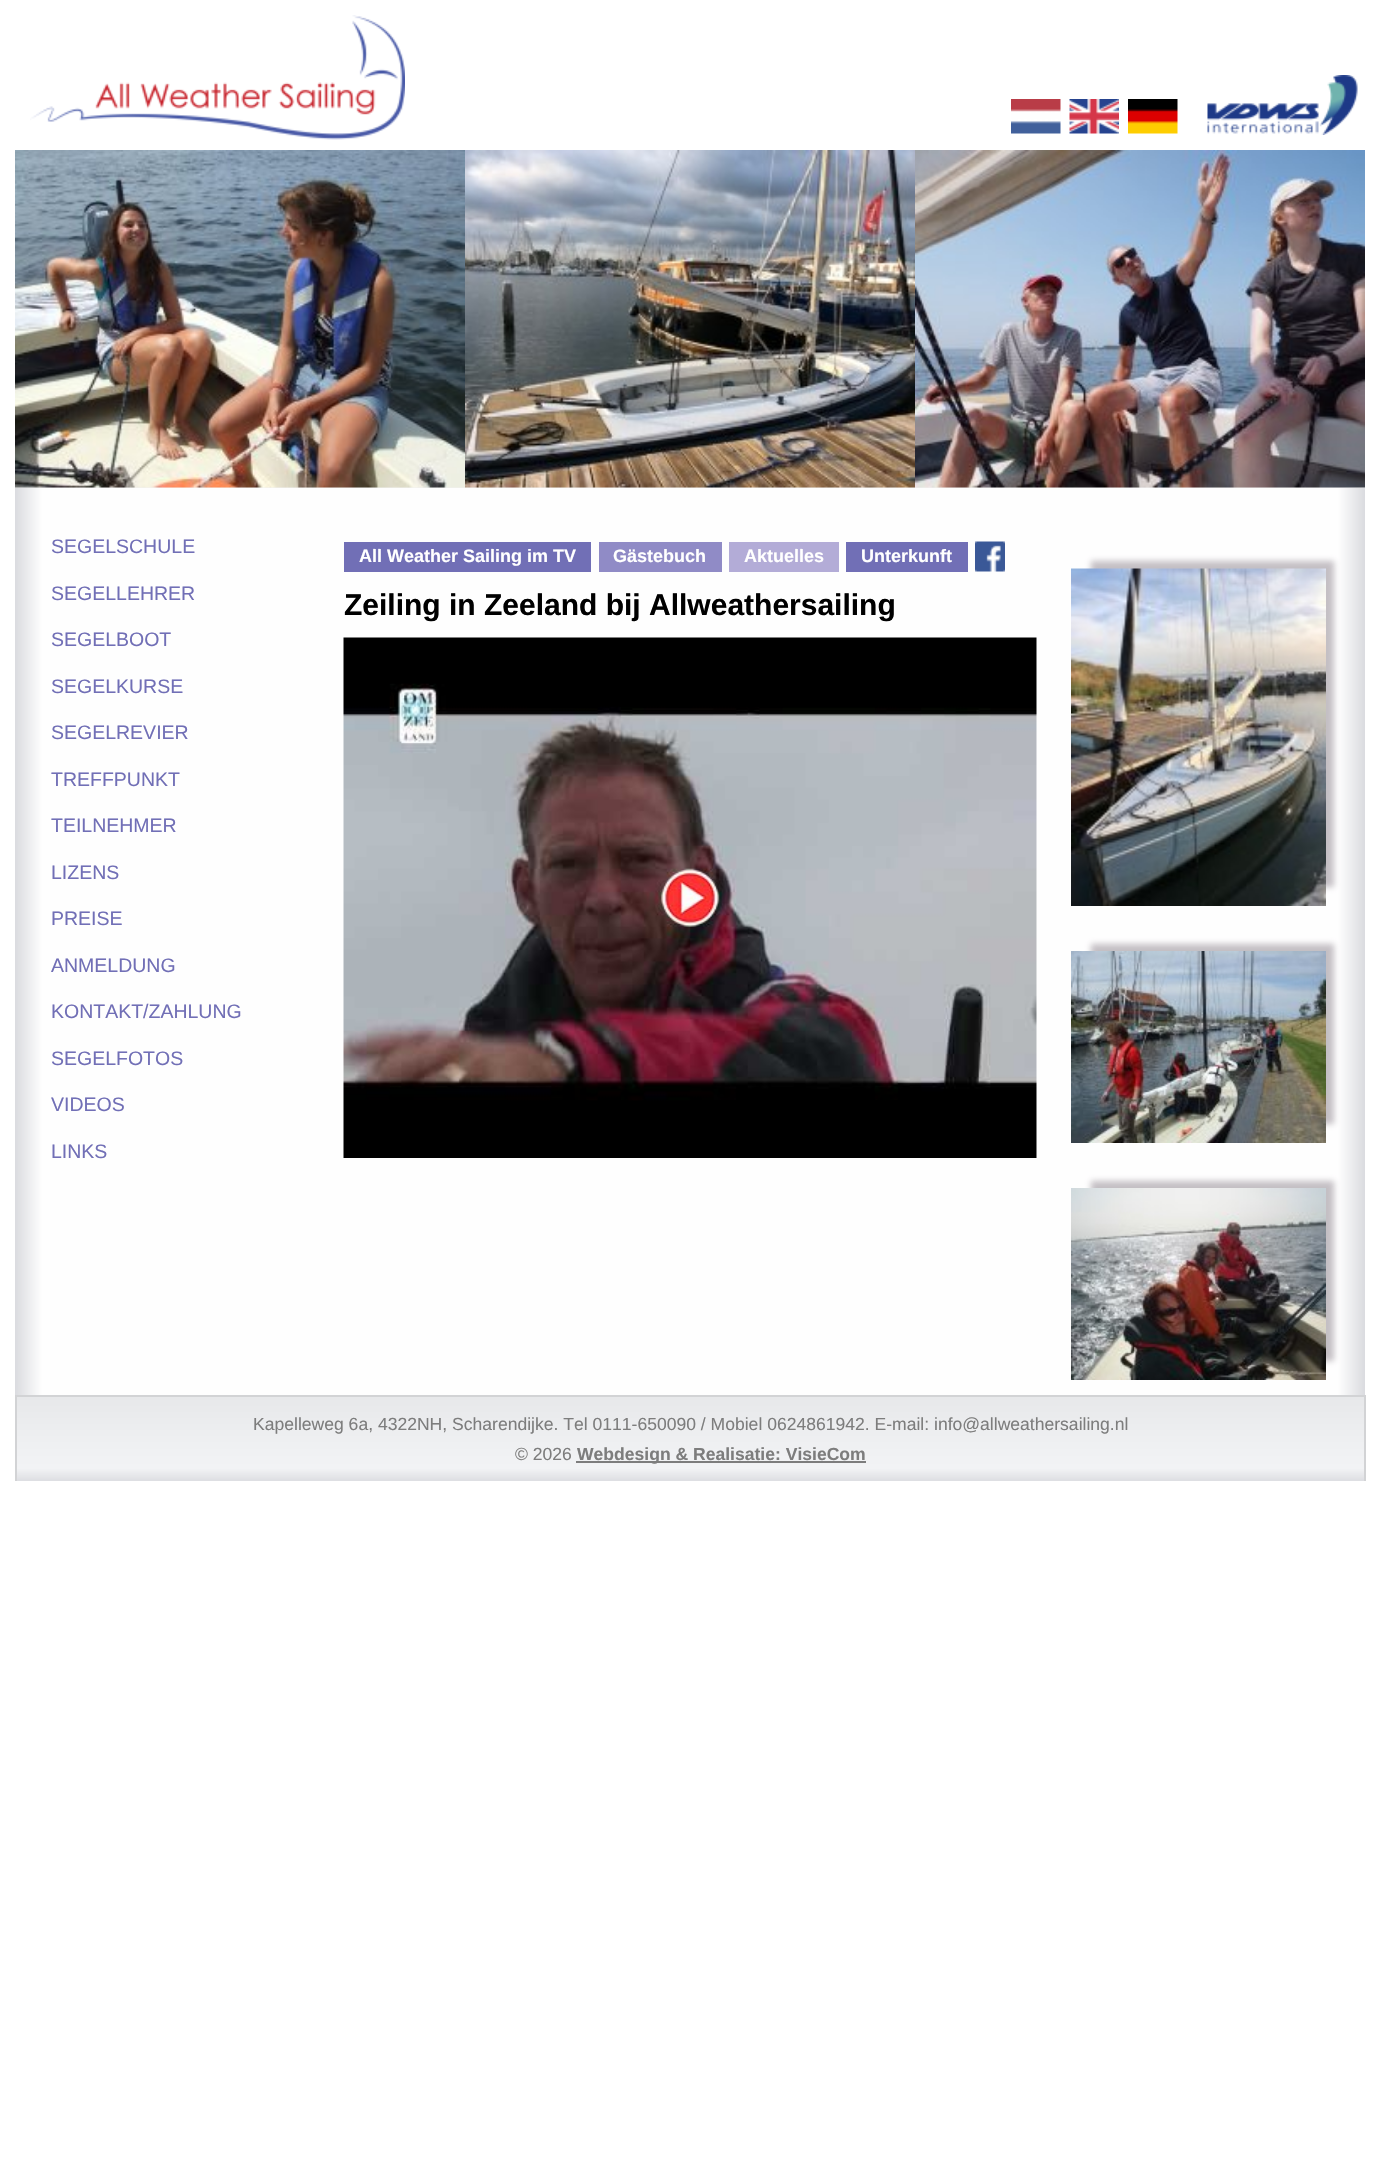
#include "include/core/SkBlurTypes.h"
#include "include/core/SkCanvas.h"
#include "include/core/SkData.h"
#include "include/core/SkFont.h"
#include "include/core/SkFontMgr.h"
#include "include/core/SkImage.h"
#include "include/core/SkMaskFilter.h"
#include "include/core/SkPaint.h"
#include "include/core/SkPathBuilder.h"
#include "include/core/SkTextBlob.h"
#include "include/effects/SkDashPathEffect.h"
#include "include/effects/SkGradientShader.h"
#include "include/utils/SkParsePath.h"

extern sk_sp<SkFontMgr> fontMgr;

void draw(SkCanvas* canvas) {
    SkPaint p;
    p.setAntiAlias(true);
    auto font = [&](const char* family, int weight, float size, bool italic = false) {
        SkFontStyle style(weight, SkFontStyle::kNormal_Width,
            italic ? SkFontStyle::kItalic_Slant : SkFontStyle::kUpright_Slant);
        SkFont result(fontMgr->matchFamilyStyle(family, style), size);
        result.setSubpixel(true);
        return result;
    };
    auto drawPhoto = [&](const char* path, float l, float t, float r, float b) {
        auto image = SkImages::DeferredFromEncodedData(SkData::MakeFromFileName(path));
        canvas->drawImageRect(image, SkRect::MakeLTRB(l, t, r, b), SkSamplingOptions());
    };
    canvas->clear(0xFFFFFFFF);
    drawPhoto("media/1.png", 30, 15, 405, 140);
    drawPhoto("media/2.png", 1011, 99, 1061, 134);
    drawPhoto("media/3.png", 1069, 99, 1119, 134);
    drawPhoto("media/4.png", 1128, 99, 1178, 134);
    drawPhoto("media/5.png", 1207, 75, 1358, 135);
    p.setColor(0xFFF1F1F1);
    canvas->drawRect(SkRect::MakeLTRB(15, 487, 1365, 488), p);
    drawPhoto("media/6.png", 15, 150, 465, 488);
    drawPhoto("media/7.png", 465, 150, 915, 488);
    drawPhoto("media/8.png", 915, 150, 1365, 488);
    {
        const SkColor colors[] = {0xFFDADBDF, 0xFFFEFEFE, 0xFFFEFEFE, 0xFFDADBDF};
        const float stops[] = {0, 0.02f, 0.98f, 1};
        const SkPoint ends[] = {{15, 941}, {1365, 941}};
        p.setShader(SkGradientShader::MakeLinear(ends, colors, stops, 4, SkTileMode::kClamp));
        p.setAlpha(255);
    }
    canvas->drawRect(SkRect::MakeLTRB(15, 488, 1365, 1395), p);
    auto font1 = font("Liberation Sans", 400, 19.5f);
    p.setShader(nullptr);
    p.setColor(0xFF716FB6);
    {
        const struct { const char* s; float x, y; } items[] = {
            {"SEGELSCHULE", 51, 553},
            {"SEGELLEHRER", 51, 600},
            {"SEGELBOOT", 51, 646},
            {"SEGELKURSE", 51, 693},
            {"SEGELREVIER", 51, 739},
            {"TREFFPUNKT", 51, 786},
            {"TEILNEHMER", 51, 832},
            {"LIZENS", 51, 879},
            {"PREISE", 51, 925},
            {"ANMELDUNG", 51, 972},
            {"KONTAKT/ZAHLUNG", 51, 1018},
            {"SEGELFOTOS", 51, 1065},
            {"VIDEOS", 51, 1111},
            {"LINKS", 51, 1158},
        };
        for (auto [s, x, y] : items) {
            canvas->drawString(s, x, y, font1, p);
        }
    }
    canvas->drawRect(SkRect::MakeLTRB(344, 542, 591, 572), p);
    auto font2 = font("Liberation Sans", 700, 18);
    p.setColor(0xFFFFFFFF);
    canvas->drawString("All Weather Sailing im TV", 359, 562, font2, p);
    p.setColor(0xFF908BC6);
    canvas->drawRect(SkRect::MakeLTRB(599, 542, 722, 572), p);
    p.setColor(0xFFFFFFFF);
    canvas->drawString("Gästebuch", 613, 562, font2, p);
    p.setColor(0xFFB3ACD7);
    canvas->drawRect(SkRect::MakeLTRB(729, 542, 839, 572), p);
    p.setColor(0xFFFFFFFF);
    canvas->drawString("Aktuelles", 744, 562, font2, p);
    p.setColor(0xFF716FB6);
    canvas->drawRect(SkRect::MakeLTRB(846, 542, 968, 572), p);
    p.setColor(0xFFFFFFFF);
    canvas->drawString("Unterkunft", 861, 562, font2, p);
    drawPhoto("media/9.png", 975, 541, 1005, 572);
    auto font3 = font("Liberation Sans", 700, 30);
    p.setColor(0xFF000000);
    canvas->drawString("Zeiling in Zeeland bij Allweathersailing", 344, 615, font3, p);
    drawPhoto("media/10.png", 343, 637, 1037, 1158);
    p.setColor(0xBFB0AAB0);
    p.setMaskFilter(SkMaskFilter::MakeBlur(kNormal_SkBlurStyle, 3));
    canvas->drawRect(SkRect::MakeLTRB(1091, 561, 1334, 887), p);
    p.setMaskFilter(nullptr);
    drawPhoto("media/11.png", 1071, 568, 1326, 906);
    p.setMaskFilter(SkMaskFilter::MakeBlur(kNormal_SkBlurStyle, 3));
    canvas->drawRect(SkRect::MakeLTRB(1091, 944, 1334, 1124), p);
    p.setMaskFilter(nullptr);
    drawPhoto("media/12.png", 1071, 951, 1326, 1143);
    p.setMaskFilter(SkMaskFilter::MakeBlur(kNormal_SkBlurStyle, 3));
    canvas->drawRect(SkRect::MakeLTRB(1091, 1181, 1334, 1361), p);
    p.setMaskFilter(nullptr);
    drawPhoto("media/13.png", 1071, 1188, 1326, 1380);
    {
        const SkColor colors[] = {0xFFE7E8EA, 0xFFF0F1F3, 0xFFF2F3F5, 0xFFDDDEE2};
        const float stops[] = {0, 0.65f, 0.85f, 1};
        const SkPoint ends[] = {{690, 1397}, {690, 1481}};
        p.setShader(SkGradientShader::MakeLinear(ends, colors, stops, 4, SkTileMode::kClamp));
        p.setAlpha(255);
    }
    canvas->drawRect(SkRect::MakeLTRB(17, 1397, 1364, 1481), p);
    p.setShader(nullptr);
    {
        const struct { float l, t, r, b; SkColor color; } items[] = {
            {15, 1395, 1365, 1397, 0xFFD2D3D5},
            {1364, 1395, 1366, 1481, 0xFFD2D3D5},
            {15, 1395, 17, 1481, 0xFFD2D3D5},
        };
        for (auto [l, t, r, b, color] : items) {
            p.setColor(color);
            canvas->drawRect(SkRect::MakeLTRB(l, t, r, b), p);
        }
    }
    auto font4 = font("Liberation Sans", 400, 17.55f);
    p.setColor(0xFF7D7D7D);
    canvas->drawString("Kapelleweg 6a, 4322NH, Scharendijke. Tel 0111-650090 / Mobiel 0624861942. E-mail: info@allweathersailing.nl", 253, 1430, font4, p);
    canvas->drawString("© 2026", 515, 1460, font4, p);
    canvas->drawRect(SkRect::MakeLTRB(576, 1461, 866, 1463), p);
    auto font5 = font("Liberation Sans", 700, 17.55f);
    canvas->drawString("Webdesign & Realisatie: VisieCom", 577, 1460, font5, p);
}
